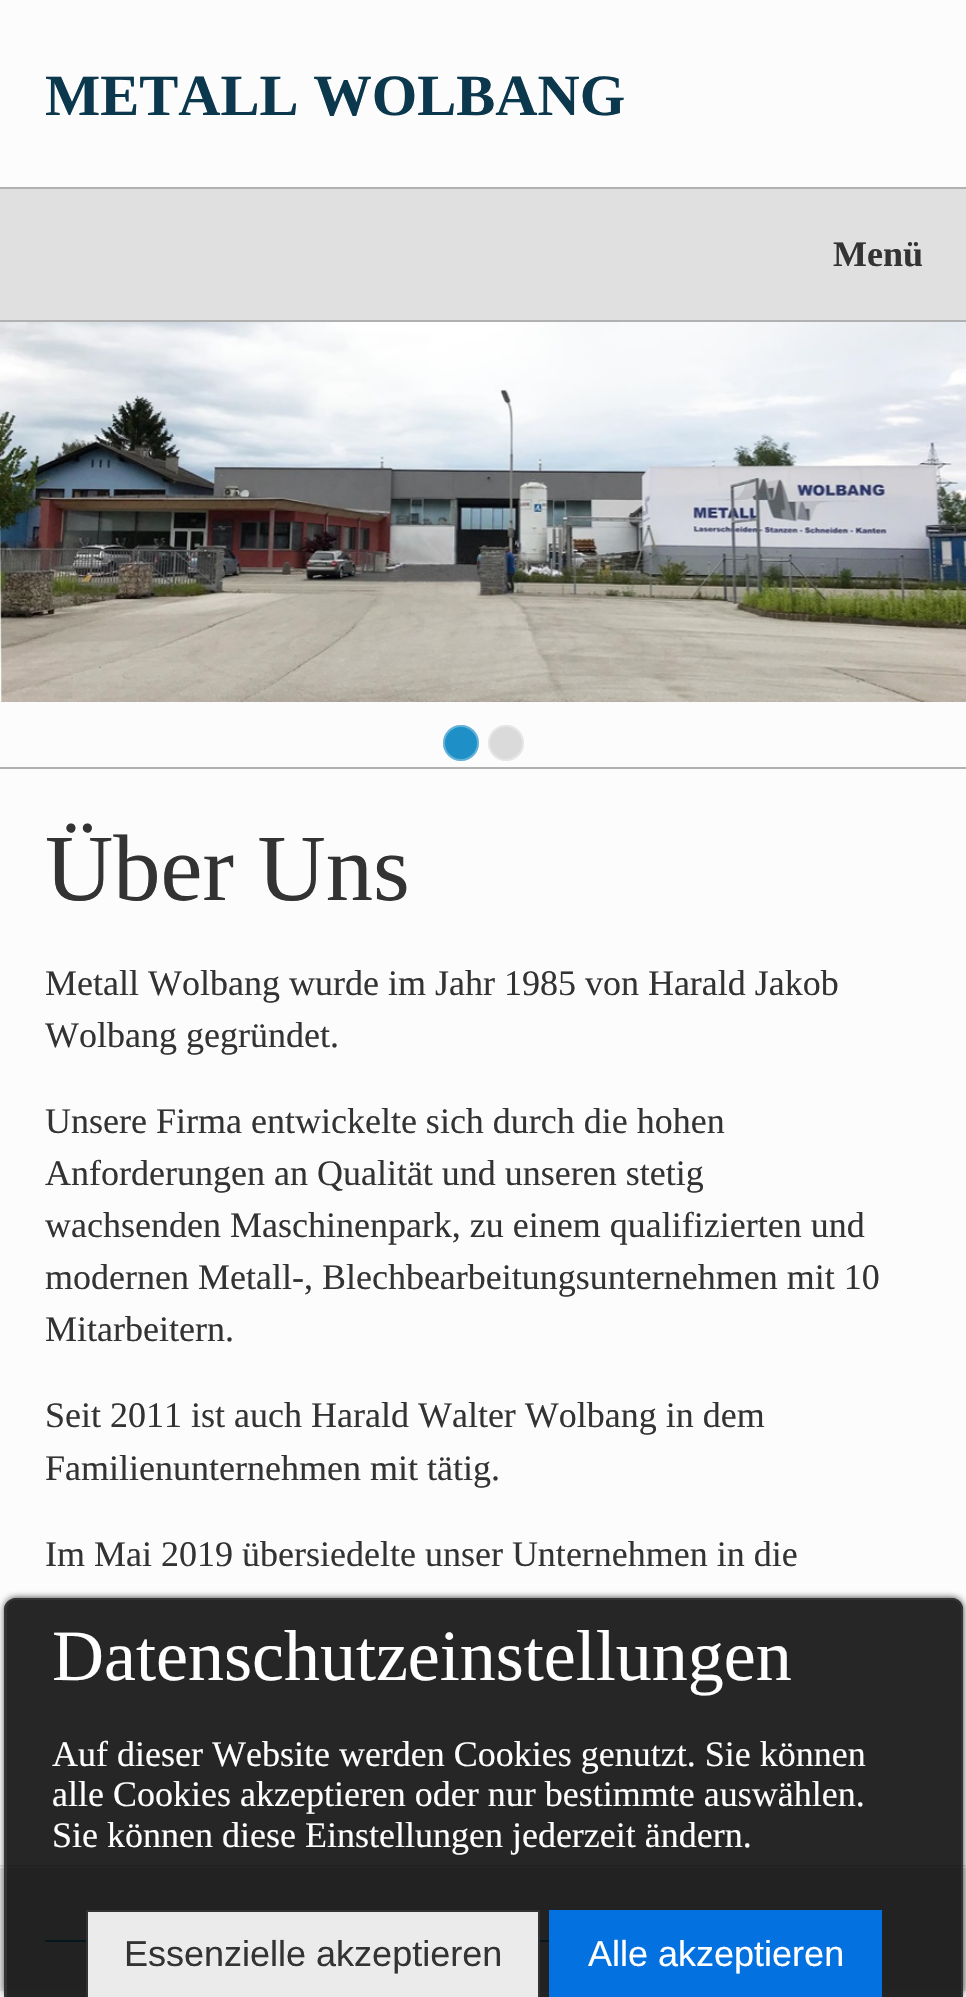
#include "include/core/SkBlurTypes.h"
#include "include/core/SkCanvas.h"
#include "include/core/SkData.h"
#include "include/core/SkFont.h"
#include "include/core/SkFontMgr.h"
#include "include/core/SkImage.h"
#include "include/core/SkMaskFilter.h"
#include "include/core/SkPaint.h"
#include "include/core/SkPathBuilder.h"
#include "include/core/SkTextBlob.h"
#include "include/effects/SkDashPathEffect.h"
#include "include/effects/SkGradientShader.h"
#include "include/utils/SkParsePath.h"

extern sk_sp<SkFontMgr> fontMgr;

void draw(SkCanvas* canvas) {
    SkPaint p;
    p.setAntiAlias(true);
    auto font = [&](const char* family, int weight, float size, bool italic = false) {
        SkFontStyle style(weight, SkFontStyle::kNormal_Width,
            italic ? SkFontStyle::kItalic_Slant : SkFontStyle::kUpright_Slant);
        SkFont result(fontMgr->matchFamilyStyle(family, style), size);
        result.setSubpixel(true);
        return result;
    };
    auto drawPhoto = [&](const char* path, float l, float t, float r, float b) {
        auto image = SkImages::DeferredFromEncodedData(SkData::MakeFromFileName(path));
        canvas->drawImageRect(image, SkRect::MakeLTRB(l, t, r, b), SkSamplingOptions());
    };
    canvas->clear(0xFFF2F2F2);
    p.setColor(0xFFFCFCFC);
    canvas->drawRect(SkRect::MakeLTRB(0, 0, 966, 187), p);
    p.setColor(0xFFB1B1B1);
    canvas->drawRect(SkRect::MakeLTRB(0, 187, 966, 189), p);
    auto font1 = font("Liberation Serif", 700, 58.5f);
    p.setColor(0xFF0C384E);
    canvas->drawString("METALL WOLBANG", 45, 115, font1, p);
    p.setColor(0xFFE0E0E0);
    canvas->drawRect(SkRect::MakeLTRB(0, 189, 966, 320), p);
    p.setColor(0xFFB1B1B1);
    canvas->drawRect(SkRect::MakeLTRB(0, 320, 966, 322), p);
    auto font2 = font("Liberation Serif", 700, 36);
    p.setColor(0xFF333333);
    canvas->drawString("Menü", 833, 266, font2, p);
    p.setColor(0xFFFCFCFC);
    canvas->drawRect(SkRect::MakeLTRB(0, 702, 966, 1868), p);
    p.setColor(0xFFB1B1B1);
    canvas->drawRect(SkRect::MakeLTRB(0, 767, 966, 769), p);
    drawPhoto("media/1.png", 0, 322, 966, 702);
    p.setColor(0xFF1E8FC7);
    canvas->drawCircle(461, 743, 18, p);
    p.setStyle(SkPaint::kStroke_Style);
    p.setStrokeWidth(2);
    p.setColor(0x4DFFFFFF);
    canvas->drawCircle(461, 743, 17, p);
    p.setStyle(SkPaint::kFill_Style);
    p.setColor(0xFFDADADA);
    canvas->drawCircle(506, 743, 18, p);
    p.setStyle(SkPaint::kStroke_Style);
    p.setColor(0x4DFFFFFF);
    canvas->drawCircle(506, 743, 17, p);
    p.setStyle(SkPaint::kFill_Style);
    p.setColor(0xFFE3E3E3);
    canvas->drawRect(SkRect::MakeLTRB(0, 1865, 966, 1867), p);
    auto font3 = font("Liberation Serif", 400, 94.5f);
    p.setColor(0xFF333333);
    canvas->drawString("Über Uns", 45, 900, font3, p);
    auto font4 = font("Liberation Serif", 400, 36);
    {
        const struct { const char* s; float x, y; } items[] = {
            {"Metall Wolbang wurde im Jahr 1985 von Harald Jakob", 45, 995},
            {"Wolbang gegründet.", 45, 1047},
            {"Unsere Firma entwickelte sich durch die hohen", 45, 1133},
            {"Anforderungen an Qualität und unseren stetig", 45, 1185},
            {"wachsenden Maschinenpark, zu einem qualifizierten und", 45, 1237},
            {"modernen Metall-, Blechbearbeitungsunternehmen mit 10", 45, 1289},
            {"Mitarbeitern.", 45, 1341},
            {"Seit 2011 ist auch Harald Walter Wolbang in dem", 45, 1427},
            {"Familienunternehmen mit tätig.", 45, 1480},
            {"Im Mai 2019 übersiedelte unser Unternehmen in die", 45, 1566},
        };
        for (auto [s, x, y] : items) {
            canvas->drawString(s, x, y, font4, p);
        }
    }
    {
        const struct { float l, t, r, b; SkColor color; } items[] = {
            {0, 1868, 966, 1991, 0xFFE0E0E0},
            {45, 1940, 86, 1942, 0xFF1E8FC7},
            {540, 1940, 549, 1942, 0xFF1E8FC7},
        };
        for (auto [l, t, r, b, color] : items) {
            p.setColor(color);
            canvas->drawRect(SkRect::MakeLTRB(l, t, r, b), p);
        }
    }
    canvas->save();
    canvas->clipPath(SkPathBuilder(SkPathFillType::kEvenOdd).moveTo(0, 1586).lineTo(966, 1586).lineTo(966, 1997).lineTo(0, 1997).close().moveTo(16, 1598).lineTo(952, 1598).cubicTo(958, 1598, 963, 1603, 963, 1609).lineTo(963, 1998).lineTo(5, 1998).lineTo(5, 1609).cubicTo(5, 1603, 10, 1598, 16, 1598).close().detach(), true);
    p.setColor(0xCC000000);
    p.setMaskFilter(SkMaskFilter::MakeBlur(kNormal_SkBlurStyle, 3.5f));
    canvas->drawRoundRect(SkRect::MakeLTRB(5, 1598, 963, 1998), 11, 11, p);
    p.setMaskFilter(nullptr);
    canvas->restore();
    p.setColor(0xD9000000);
    canvas->drawPath(SkPathBuilder().moveTo(16, 1598).lineTo(952, 1598).cubicTo(958, 1598, 963, 1603, 963, 1609).lineTo(963, 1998).lineTo(5, 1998).lineTo(5, 1609).cubicTo(5, 1603, 10, 1598, 16, 1598).close().detach(), p);
    p.setColor(0xFF333333);
    canvas->drawPath(SkPathBuilder(SkPathFillType::kEvenOdd).moveTo(16, 1598).lineTo(952, 1598).cubicTo(958, 1598, 963, 1603, 963, 1609).lineTo(963, 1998).lineTo(4, 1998).lineTo(4, 1609).cubicTo(4, 1603, 10, 1598, 16, 1598).close().moveTo(16, 1600).lineTo(952, 1600).cubicTo(957, 1600, 961, 1604, 961, 1609).lineTo(961, 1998).lineTo(7, 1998).lineTo(7, 1609).cubicTo(7, 1604, 11, 1600, 16, 1600).close().detach(), p);
    auto font5 = font("Liberation Serif", 400, 72);
    p.setColor(0xFFFFFFFF);
    canvas->drawString("Datenschutzeinstellungen", 52, 1680, font5, p);
    {
        const struct { const char* s; float x, y; } items[] = {
            {"Auf dieser Website werden Cookies genutzt. Sie können", 52, 1766},
            {"alle Cookies akzeptieren oder nur bestimmte auswählen.", 52, 1806},
            {"Sie können diese Einstellungen jederzeit ändern.", 52, 1847},
        };
        for (auto [s, x, y] : items) {
            canvas->drawString(s, x, y, font4, p);
        }
    }
    p.setColor(0xFFEBEBEB);
    canvas->drawRect(SkRect::MakeLTRB(88, 1912, 538, 1997), p);
    p.setColor(0xFF333333);
    canvas->drawPath(SkPathBuilder().moveTo(86, 1910).lineTo(86, 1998).lineTo(88, 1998).lineTo(88, 1912).lineTo(538, 1912).lineTo(538, 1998).lineTo(540, 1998).lineTo(540, 1910).close().detach(), p);
    auto font6 = font("Liberation Sans", 400, 36);
    canvas->drawString("Essenzielle akzeptieren", 124, 1966, font6, p);
    p.setColor(0xFF0371DF);
    canvas->drawRect(SkRect::MakeLTRB(549, 1910, 882, 1997), p);
    p.setColor(0xFFFFFFFF);
    canvas->drawString("Alle akzeptieren", 588, 1966, font6, p);
}
